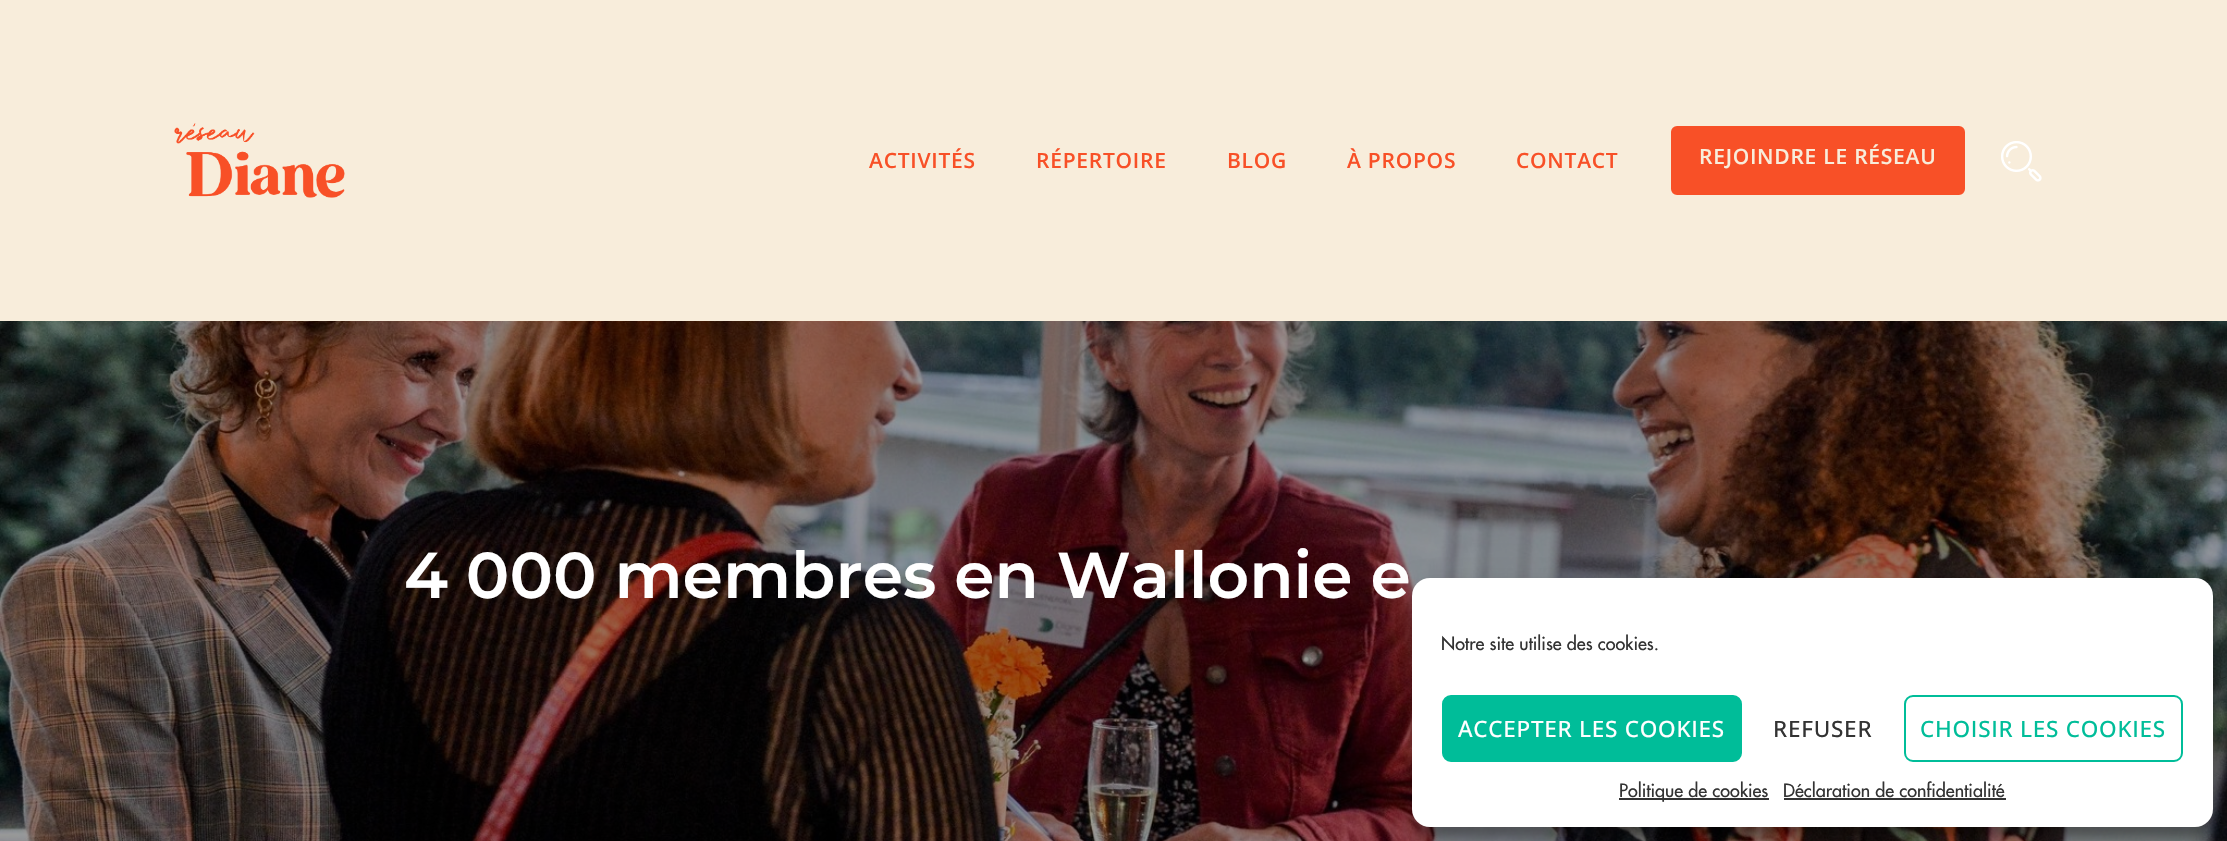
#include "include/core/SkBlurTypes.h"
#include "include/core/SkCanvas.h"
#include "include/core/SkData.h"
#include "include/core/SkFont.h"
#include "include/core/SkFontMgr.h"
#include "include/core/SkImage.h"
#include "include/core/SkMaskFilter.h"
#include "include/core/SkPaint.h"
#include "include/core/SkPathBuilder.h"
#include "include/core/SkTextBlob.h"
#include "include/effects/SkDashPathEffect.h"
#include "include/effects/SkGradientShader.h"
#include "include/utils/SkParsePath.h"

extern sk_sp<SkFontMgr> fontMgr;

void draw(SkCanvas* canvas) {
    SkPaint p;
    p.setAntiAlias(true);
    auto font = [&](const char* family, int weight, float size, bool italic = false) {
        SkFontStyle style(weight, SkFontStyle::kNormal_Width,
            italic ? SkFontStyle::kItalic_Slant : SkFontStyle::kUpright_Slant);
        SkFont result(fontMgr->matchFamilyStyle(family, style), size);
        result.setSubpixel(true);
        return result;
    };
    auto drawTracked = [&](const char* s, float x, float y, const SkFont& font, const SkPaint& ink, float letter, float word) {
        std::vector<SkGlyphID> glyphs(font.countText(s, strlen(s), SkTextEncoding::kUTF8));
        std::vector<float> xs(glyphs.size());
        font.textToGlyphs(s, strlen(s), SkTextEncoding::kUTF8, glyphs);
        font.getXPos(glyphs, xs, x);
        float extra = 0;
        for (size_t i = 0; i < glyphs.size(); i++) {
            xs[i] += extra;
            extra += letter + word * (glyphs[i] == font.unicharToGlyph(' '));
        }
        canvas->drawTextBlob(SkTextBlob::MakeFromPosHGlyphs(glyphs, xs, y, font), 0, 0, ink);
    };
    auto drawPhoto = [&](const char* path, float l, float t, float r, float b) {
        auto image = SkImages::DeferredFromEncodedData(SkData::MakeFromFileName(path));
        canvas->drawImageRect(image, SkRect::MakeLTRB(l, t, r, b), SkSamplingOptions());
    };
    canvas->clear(0xFFFFFFFF);
    p.setColor(0xFFF8EDDB);
    canvas->drawRect(SkRect::MakeLTRB(0, 0, 2227, 321), p);
    drawPhoto("media/1.png", 174, 123, 345, 198);
    auto font1 = font("Open Sans", 600, 21);
    p.setColor(0xFFF85027);
    {
        const struct { const char* s; float x, y; } items[] = {
            {"ACTIVITÉS", 869, 168},
            {"RÉPERTOIRE", 1036, 168},
            {"BLOG", 1227, 168},
            {"À PROPOS", 1347, 168},
            {"CONTACT", 1516, 168},
        };
        for (auto [s, x, y] : items) {
            drawTracked(s, x, y, font1, p, 0.75f, 0);
        }
    }
    canvas->drawRoundRect(SkRect::MakeLTRB(1672.5f, 127.5f, 1963.5f, 193.5f), 4.5f, 4.5f, p);
    p.setStyle(SkPaint::kStroke_Style);
    p.setStrokeWidth(3);
    canvas->drawRoundRect(SkRect::MakeLTRB(1672.5f, 127.5f, 1963.5f, 193.5f), 4.5f, 4.5f, p);
    p.setStyle(SkPaint::kFill_Style);
    p.setColor(0xFFF8EDDB);
    drawTracked("REJOINDRE LE RÉSEAU", 1699, 164, font1, p, 0.75f, 0);
    drawPhoto("media/2.png", 2001, 141, 2042, 182);
    drawPhoto("media/3.png", 0, 321, 2227, 841);
    auto font2 = font("Montserrat", 600, 64.75f);
    p.setColor(0xFFFFFFFF);
    canvas->drawString("4 000 membres en Wallonie e", 404, 598, font2, p);
    p.setColor(0x3B000000);
    p.setMaskFilter(SkMaskFilter::MakeBlur(kNormal_SkBlurStyle, 4.5f));
    canvas->drawRoundRect(SkRect::MakeLTRB(1412, 587, 2213, 836), 18, 18, p);
    p.setMaskFilter(nullptr);
    p.setColor(0x30000000);
    p.setMaskFilter(SkMaskFilter::MakeBlur(kNormal_SkBlurStyle, 15));
    canvas->drawRoundRect(SkRect::MakeLTRB(1412, 593, 2213, 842), 18, 18, p);
    p.setMaskFilter(nullptr);
    p.setColor(0xFFFFFFFF);
    canvas->drawRoundRect(SkRect::MakeLTRB(1412, 578, 2213, 827), 18, 18, p);
    auto font3 = font("Futura", 400, 18);
    p.setColor(0xFF333333);
    canvas->drawString("Notre site utilise des cookies.", 1441, 650, font3, p);
    p.setColor(0xFF00BD99);
    canvas->drawRoundRect(SkRect::MakeLTRB(1443, 696, 1741, 761), 8, 8, p);
    p.setStyle(SkPaint::kStroke_Style);
    p.setStrokeWidth(2);
    canvas->drawRoundRect(SkRect::MakeLTRB(1443, 696, 1741, 761), 8, 8, p);
    auto font4 = font("Open Sans", 500, 22.5f);
    p.setStyle(SkPaint::kFill_Style);
    p.setColor(0xFFFFFFFF);
    drawTracked("ACCEPTER LES COOKIES", 1458, 737, font4, p, 0.75f, 0);
    p.setColor(0xFF333333);
    drawTracked("REFUSER", 1773, 737, font4, p, 0.75f, 0);
    p.setStyle(SkPaint::kStroke_Style);
    p.setColor(0xFF00BD99);
    canvas->drawRoundRect(SkRect::MakeLTRB(1905, 696, 2182, 761), 8, 8, p);
    p.setStyle(SkPaint::kFill_Style);
    drawTracked("CHOISIR LES COOKIES", 1920, 737, font4, p, 0.75f, 0);
    p.setColor(0xFF333333);
    canvas->drawRect(SkRect::MakeLTRB(1619, 798, 1769, 800), p);
    canvas->drawString("Politique de cookies", 1619, 797, font3, p);
    canvas->drawString("Déclaration de confidentialité", 1783, 797, font3, p);
    canvas->drawRect(SkRect::MakeLTRB(1784, 798, 2006, 800), p);
}
